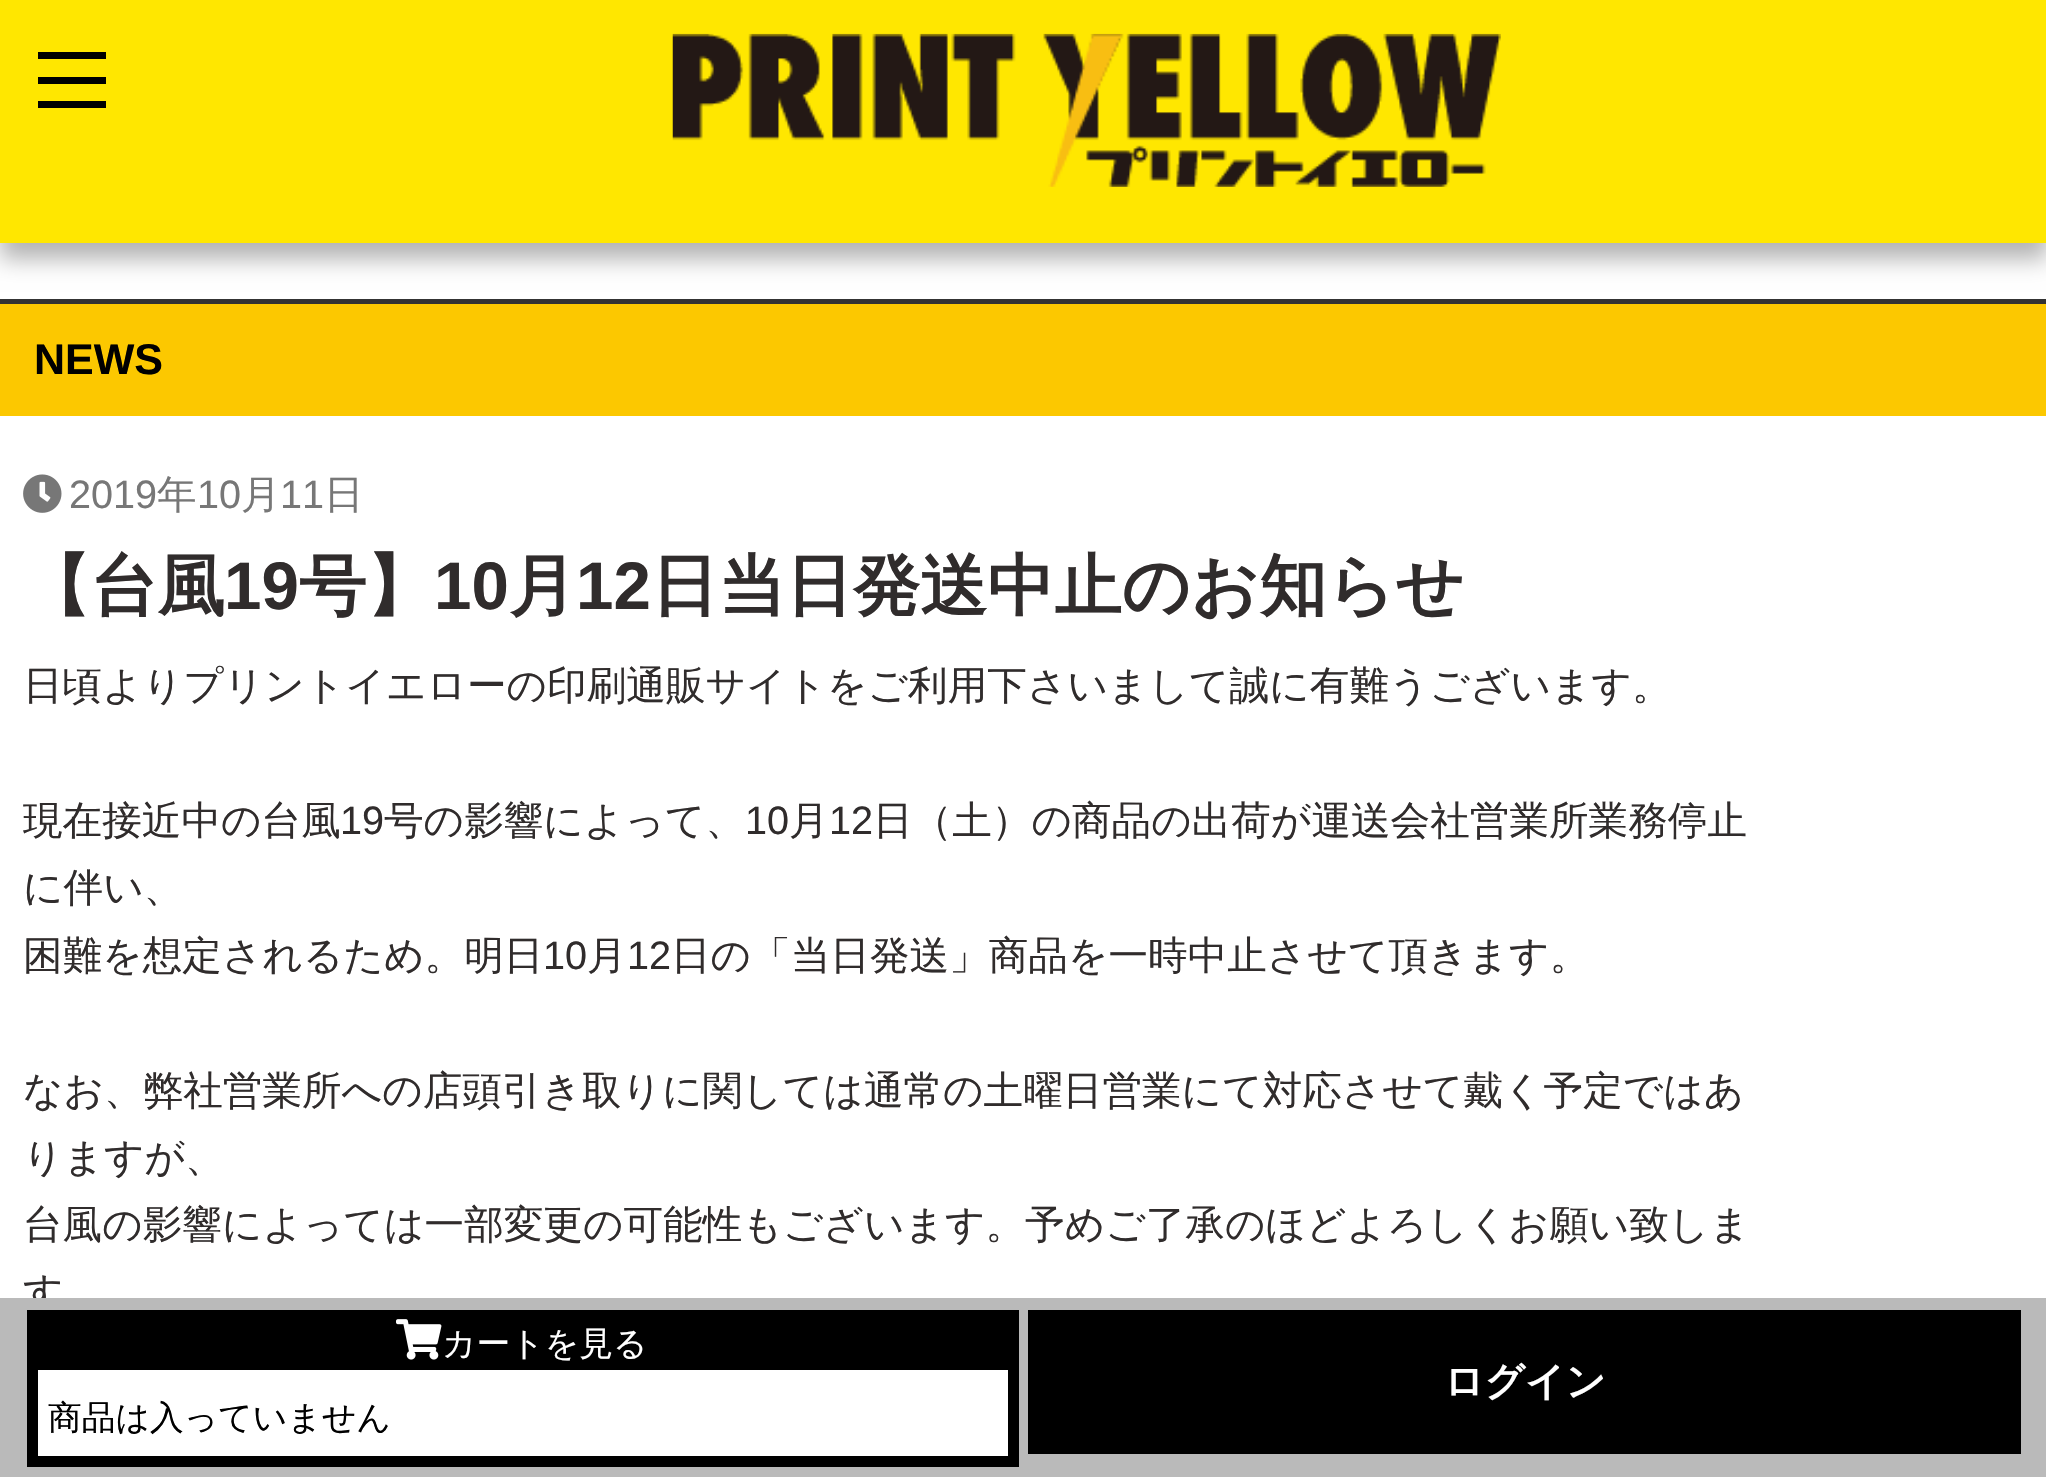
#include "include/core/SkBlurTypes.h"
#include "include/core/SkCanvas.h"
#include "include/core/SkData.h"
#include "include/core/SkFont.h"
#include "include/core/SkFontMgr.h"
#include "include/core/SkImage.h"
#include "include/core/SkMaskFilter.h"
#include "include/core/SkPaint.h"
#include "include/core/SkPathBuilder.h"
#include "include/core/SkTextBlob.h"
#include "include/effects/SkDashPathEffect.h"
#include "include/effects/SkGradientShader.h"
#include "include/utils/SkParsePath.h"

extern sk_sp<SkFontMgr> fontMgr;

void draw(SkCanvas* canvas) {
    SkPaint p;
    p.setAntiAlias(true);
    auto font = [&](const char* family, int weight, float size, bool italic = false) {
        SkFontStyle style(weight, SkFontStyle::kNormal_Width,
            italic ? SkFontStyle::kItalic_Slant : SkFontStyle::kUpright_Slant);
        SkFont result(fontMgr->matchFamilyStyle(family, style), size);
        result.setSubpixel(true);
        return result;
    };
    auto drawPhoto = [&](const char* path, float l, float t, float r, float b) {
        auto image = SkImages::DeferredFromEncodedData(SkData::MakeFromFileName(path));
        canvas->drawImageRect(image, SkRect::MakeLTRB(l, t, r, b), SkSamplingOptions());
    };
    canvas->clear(0xFFFFFFFF);
    p.setColor(0xFF333333);
    canvas->drawRect(SkRect::MakeLTRB(0, 299, 2046, 304), p);
    p.setColor(0xFFFCC800);
    canvas->drawRect(SkRect::MakeLTRB(0, 304, 2046, 416), p);
    auto font1 = font("Liberation Sans", 700, 43);
    p.setColor(0xFF000000);
    canvas->drawString("NEWS", 34, 374, font1, p);
    drawPhoto("media/1.png", 23, 474, 62, 513);
    auto font2 = font("Liberation Sans", 400, 39.6f);
    p.setColor(0xFF777777);
    canvas->drawString("2019", 69, 508, font2, p);
    auto font3 = font("WenQuanYi Zen Hei", 500, 39.6f);
    canvas->drawString("年", 157, 508, font3, p);
    canvas->drawString("10", 197, 508, font2, p);
    canvas->drawString("月", 241, 508, font3, p);
    canvas->drawString("11", 280, 508, font2, p);
    canvas->drawString("日", 324, 508, font3, p);
    auto font4 = font("WenQuanYi Zen Hei", 700, 67.25f);
    p.setColor(0xFF302C2C);
    canvas->drawString("【台風", 23, 609, font4, p);
    auto font5 = font("Liberation Sans", 700, 67.25f);
    canvas->drawString("19", 224, 609, font5, p);
    canvas->drawString("号】", 299, 609, font4, p);
    canvas->drawString("10", 434, 609, font5, p);
    canvas->drawString("月", 509, 609, font4, p);
    canvas->drawString("12", 576, 609, font5, p);
    canvas->drawString("日当日発送中止のお知らせ", 651, 609, font4, p);
    canvas->drawString("日頃よりプリントイエローの印刷通販サイトをご利用下さいまして誠に有難うございます。", 23, 699, font3, p);
    canvas->drawString("現在接近中の台風", 23, 834, font3, p);
    canvas->drawString("19", 340, 834, font2, p);
    canvas->drawString("号の影響によって、", 384, 834, font3, p);
    canvas->drawString("10", 745, 834, font2, p);
    canvas->drawString("月", 789, 834, font3, p);
    canvas->drawString("12", 829, 834, font2, p);
    {
        const struct { const char* s; float x, y; } items[] = {
            {"日（土）の商品の出荷が運送会社営業所業務停止", 873, 834},
            {"に伴い、", 23, 901},
            {"困難を想定されるため。明日", 23, 969},
        };
        for (auto [s, x, y] : items) {
            canvas->drawString(s, x, y, font3, p);
        }
    }
    canvas->drawString("10", 543, 969, font2, p);
    canvas->drawString("月", 587, 969, font3, p);
    canvas->drawString("12", 627, 969, font2, p);
    {
        const struct { const char* s; float x, y; } items[] = {
            {"日の「当日発送」商品を一時中止させて頂きます。", 671, 969},
            {"なお、弊社営業所への店頭引き取りに関しては通常の土曜日営業にて対応させて戴く予定ではあ", 23, 1104},
            {"りますが、", 23, 1171},
            {"台風の影響によっては一部変更の可能性もございます。予めご了承のほどよろしくお願い致しま", 23, 1238},
            {"す", 23, 1305},
        };
        for (auto [s, x, y] : items) {
            canvas->drawString(s, x, y, font3, p);
        }
    }
    p.setColor(0x4D000000);
    p.setMaskFilter(SkMaskFilter::MakeBlur(kNormal_SkBlurStyle, 11));
    canvas->drawRect(SkRect::MakeLTRB(0, 16, 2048, 259), p);
    p.setMaskFilter(nullptr);
    {
        const struct { float l, t, r, b; SkColor color; } items[] = {
            {0, 0, 2046, 243, 0xFFFFE700},
            {38, 52, 106, 59, 0xFF000000},
            {38, 77, 106, 84, 0xFF000000},
            {38, 101, 106, 108, 0xFF000000},
        };
        for (auto [l, t, r, b, color] : items) {
            p.setColor(color);
            canvas->drawRect(SkRect::MakeLTRB(l, t, r, b), p);
        }
    }
    drawPhoto("media/2.png", 672, 33, 1501, 187);
    p.setColor(0xFFBABABA);
    canvas->drawRect(SkRect::MakeLTRB(0, 1298, 2046, 1477), p);
    p.setColor(0xFF000000);
    canvas->drawRect(SkRect::MakeLTRB(27, 1310, 1019, 1467), p);
    drawPhoto("media/3.png", 396, 1319, 442, 1360);
    auto font6 = font("WenQuanYi Zen Hei", 500, 33.75f);
    p.setColor(0xFFFFFFFF);
    canvas->drawString("カートを見る", 442, 1355, font6, p);
    canvas->drawRect(SkRect::MakeLTRB(38, 1370, 1008, 1456), p);
    p.setColor(0xFF000000);
    canvas->drawString("商品は入っていません", 48, 1429, font6, p);
    canvas->drawRect(SkRect::MakeLTRB(1028, 1310, 2021, 1454), p);
    auto font7 = font("WenQuanYi Zen Hei", 700, 39.6f);
    p.setColor(0xFFFFFFFF);
    canvas->drawString("ログイン", 1444, 1395, font7, p);
}
